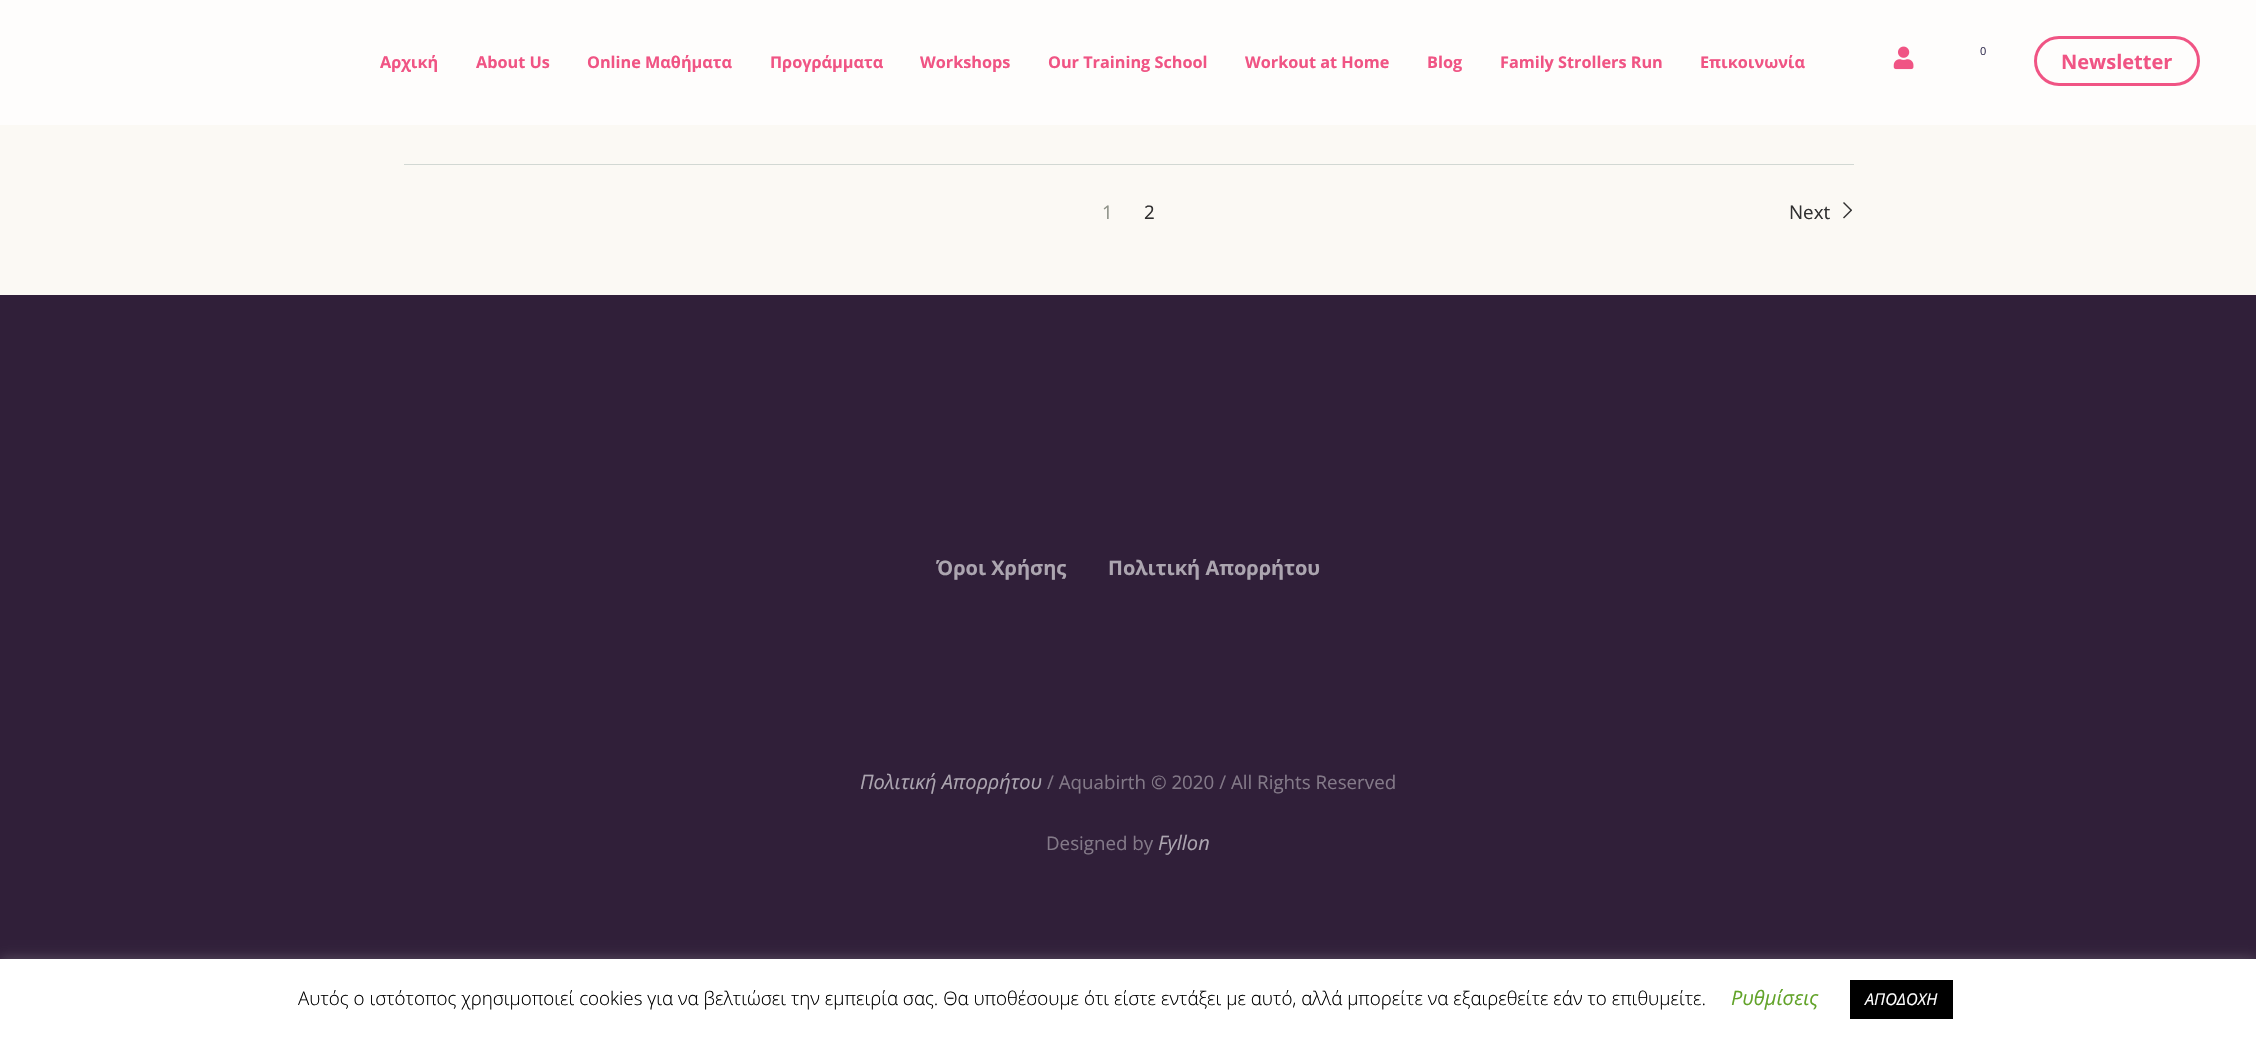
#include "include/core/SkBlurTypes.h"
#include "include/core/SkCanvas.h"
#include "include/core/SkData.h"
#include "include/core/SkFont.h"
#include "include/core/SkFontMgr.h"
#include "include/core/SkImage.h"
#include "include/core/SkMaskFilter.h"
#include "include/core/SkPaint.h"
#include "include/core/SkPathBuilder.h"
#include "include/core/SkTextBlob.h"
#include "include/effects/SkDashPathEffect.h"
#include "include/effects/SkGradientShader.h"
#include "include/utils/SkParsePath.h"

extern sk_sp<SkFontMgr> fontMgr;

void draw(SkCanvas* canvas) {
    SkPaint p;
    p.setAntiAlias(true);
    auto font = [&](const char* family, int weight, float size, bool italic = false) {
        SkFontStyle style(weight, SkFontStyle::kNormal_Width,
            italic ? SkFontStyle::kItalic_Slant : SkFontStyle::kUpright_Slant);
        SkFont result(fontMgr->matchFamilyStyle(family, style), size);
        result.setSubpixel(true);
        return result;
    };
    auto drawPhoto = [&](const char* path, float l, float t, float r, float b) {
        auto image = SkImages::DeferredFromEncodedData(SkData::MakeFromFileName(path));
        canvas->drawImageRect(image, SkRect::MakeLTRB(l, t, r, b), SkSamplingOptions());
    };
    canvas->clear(0xFFFBF9F4);
    p.setColor(0xFFFEFDFC);
    canvas->drawRect(SkRect::MakeLTRB(0, 0, 2256, 125), p);
    drawPhoto("media/1.png", 1893, 46, 1914, 70);
    auto font1 = font("Open Sans", 400, 11);
    p.setColor(0xFF3A3556);
    canvas->drawString("0", 1980, 55, font1, p);
    auto font2 = font("Open Sans", 700, 16.25f);
    p.setColor(0xFFF05484);
    {
        const struct { const char* s; float x, y; } items[] = {
            {"Αρχική", 380, 68},
            {"About Us", 476, 68},
            {"Online Μαθήματα", 587, 68},
            {"Προγράμματα", 770, 68},
            {"Workshops", 920, 68},
            {"Our Training School", 1048, 68},
            {"Workout at Home", 1245, 68},
            {"Blog", 1427, 68},
            {"Family Strollers Run", 1500, 68},
            {"Επικοινωνία", 1700, 68},
        };
        for (auto [s, x, y] : items) {
            canvas->drawString(s, x, y, font2, p);
        }
    }
    p.setStyle(SkPaint::kStroke_Style);
    p.setStrokeWidth(3);
    canvas->drawRoundRect(SkRect::MakeLTRB(2035.5f, 37.5f, 2198.5f, 84.5f), 23.5f, 23.5f, p);
    auto font3 = font("Open Sans", 700, 20);
    p.setStyle(SkPaint::kFill_Style);
    canvas->drawString("Newsletter", 2061, 69, font3, p);
    p.setColor(0xFFD2D8D3);
    canvas->drawRect(SkRect::MakeLTRB(404, 164, 1854, 165), p);
    auto font4 = font("Open Sans", 400, 18.75f);
    p.setColor(0xFF8E9288);
    canvas->drawString("1", 1102, 219, font4, p);
    p.setColor(0xFF313131);
    canvas->drawString("2", 1144, 219, font4, p);
    canvas->drawString("Next", 1789, 219, font4, p);
    canvas->drawPath(SkPathBuilder().moveTo(1844, 202).lineTo(1852, 210).lineTo(1851, 211).lineTo(1843, 203).close().detach(), p);
    canvas->drawPath(SkPathBuilder().moveTo(1852, 210.5f).lineTo(1844, 218.5f).lineTo(1843, 217.5f).lineTo(1851, 209.5f).close().detach(), p);
    p.setColor(0xFF301F39);
    canvas->drawRect(SkRect::MakeLTRB(0, 295, 2256, 959), p);
    p.setColor(0xFFACA5B0);
    canvas->drawString("Όροι Χρήσης", 936, 575, font3, p);
    canvas->drawString("Πολιτική Απορρήτου", 1108, 575, font3, p);
    auto font5 = font("Open Sans", 400, 20, true);
    canvas->drawString("Πολιτική Απορρήτου", 860, 789, font5, p);
    p.setColor(0xFF837988);
    canvas->drawString("/ Aquabirth © 2020 / All Rights Reserved", 1047, 789, font4, p);
    canvas->drawString("Designed by", 1046, 850, font4, p);
    p.setColor(0xFFACA5B0);
    canvas->drawString("Fyllon", 1158, 850, font5, p);
    p.setColor(0x4DACABAB);
    p.setMaskFilter(SkMaskFilter::MakeBlur(kNormal_SkBlurStyle, 6));
    canvas->drawRect(SkRect::MakeLTRB(0, 958, 2256, 1039), p);
    p.setMaskFilter(nullptr);
    p.setColor(0xFFFFFFFF);
    canvas->drawRect(SkRect::MakeLTRB(0, 959, 2256, 1040), p);
    auto font6 = font("Open Sans", 300, 18.75f);
    p.setColor(0xFF000000);
    canvas->drawString("Αυτός ο ιστότοπος χρησιμοποιεί cookies για να βελτιώσει την εμπειρία σας. Θα υποθέσουμε ότι είστε εντάξει με αυτό, αλλά μπορείτε να εξαιρεθείτε εάν το επιθυμείτε.", 298, 1005, font6, p);
    p.setColor(0xFF62A329);
    canvas->drawString("Ρυθμίσεις", 1731, 1005, font5, p);
    p.setColor(0xFF000000);
    canvas->drawRect(SkRect::MakeLTRB(1850, 980, 1953, 1019), p);
    auto font7 = font("Open Sans", 400, 16.25f, true);
    p.setColor(0xFFFFFFFF);
    canvas->drawString("ΑΠΟΔΟΧΗ", 1865, 1005, font7, p);
}
